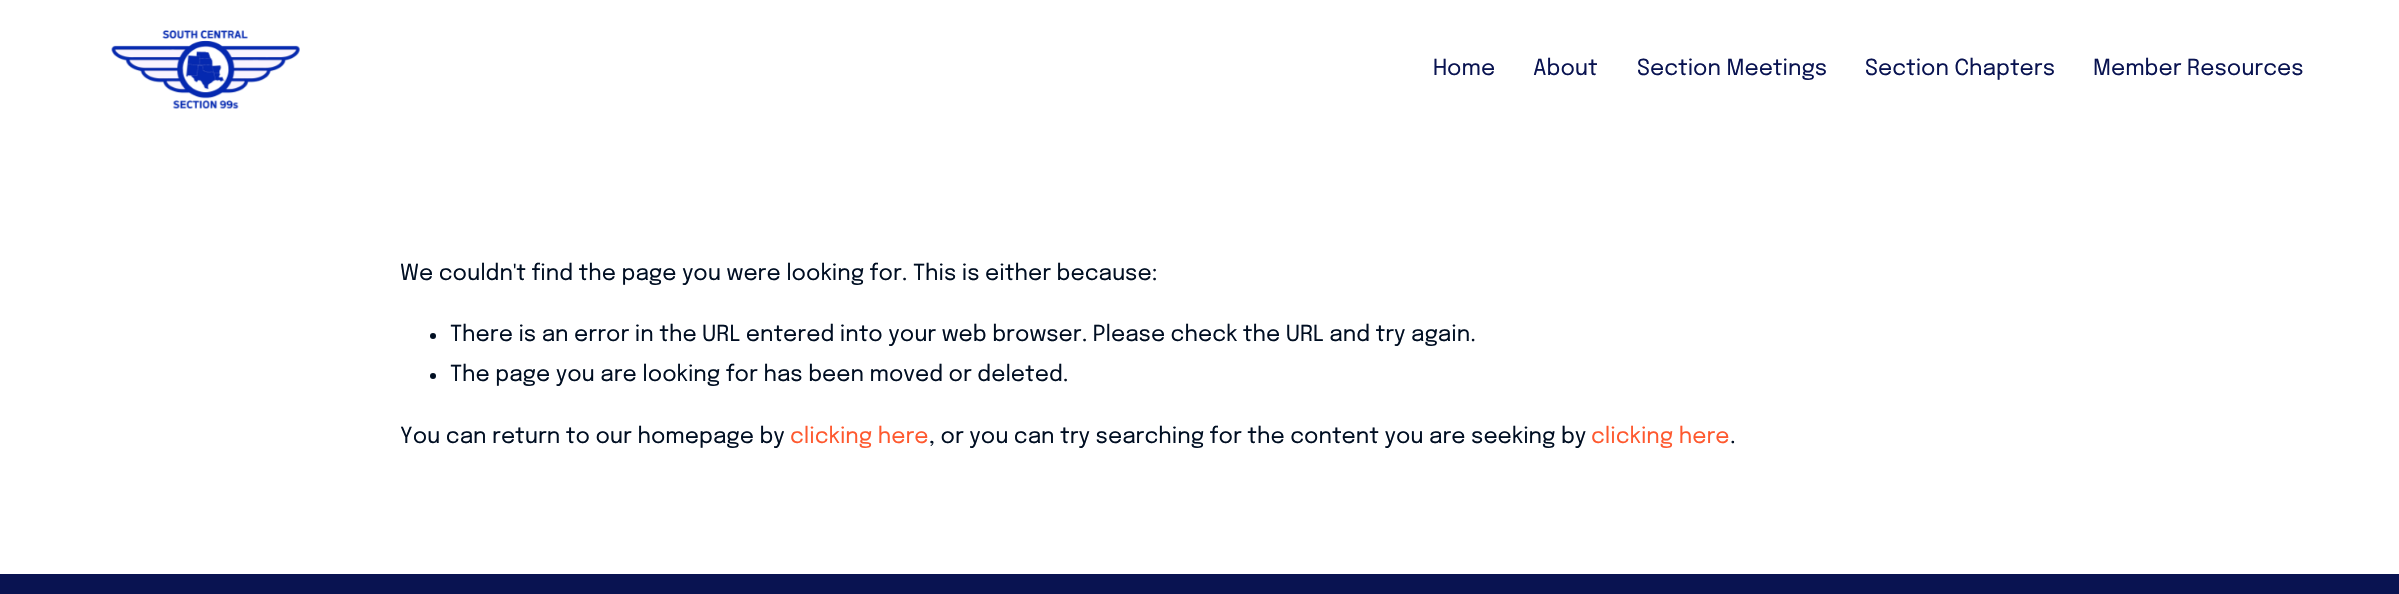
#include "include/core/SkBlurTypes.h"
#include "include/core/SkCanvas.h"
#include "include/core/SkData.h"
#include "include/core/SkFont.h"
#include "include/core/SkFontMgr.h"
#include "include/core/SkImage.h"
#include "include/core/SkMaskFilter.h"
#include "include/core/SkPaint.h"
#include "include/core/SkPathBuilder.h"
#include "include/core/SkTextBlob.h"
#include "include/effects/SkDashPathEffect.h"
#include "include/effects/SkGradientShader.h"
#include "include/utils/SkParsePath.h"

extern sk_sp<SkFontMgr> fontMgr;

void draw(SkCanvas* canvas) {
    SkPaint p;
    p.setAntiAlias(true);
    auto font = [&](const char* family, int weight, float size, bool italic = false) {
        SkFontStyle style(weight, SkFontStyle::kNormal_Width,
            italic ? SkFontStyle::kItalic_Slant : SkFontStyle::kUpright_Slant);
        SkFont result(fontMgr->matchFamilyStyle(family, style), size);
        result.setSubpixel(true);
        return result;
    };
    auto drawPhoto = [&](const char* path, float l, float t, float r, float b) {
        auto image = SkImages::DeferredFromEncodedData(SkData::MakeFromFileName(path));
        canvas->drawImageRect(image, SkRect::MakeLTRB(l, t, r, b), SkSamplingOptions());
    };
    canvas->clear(0xFFFFFFFF);
    drawPhoto("media/1.png", 111, 30, 300, 109);
    auto font1 = font("Epilogue", 400, 22);
    p.setColor(0xFF091351);
    {
        const struct { const char* s; float x, y; } items[] = {
            {"Home", 1433, 75},
            {"About", 1533, 75},
            {"Section Meetings", 1637, 75},
            {"Section Chapters", 1865, 75},
            {"Member Resources", 2093, 75},
        };
        for (auto [s, x, y] : items) {
            canvas->drawString(s, x, y, font1, p);
        }
    }
    p.setColor(0xFF000E22);
    canvas->drawString("We couldn't find the page you were looking for. This is either because:", 400, 280, font1, p);
    canvas->drawCircle(433, 336, 3, p);
    canvas->drawString("There is an error in the URL entered into your web browser. Please check the URL and try again.", 450, 341, font1, p);
    canvas->drawCircle(433, 376, 3, p);
    canvas->drawString("The page you are looking for has been moved or deleted.", 450, 381, font1, p);
    canvas->drawString("You can return to our homepage by", 400, 443, font1, p);
    p.setColor(0xFFFE582E);
    canvas->drawString("clicking here", 790, 443, font1, p);
    p.setColor(0xFF000E22);
    canvas->drawString(", or you can try searching for the content you are seeking by", 929, 443, font1, p);
    p.setColor(0xFFFE582E);
    canvas->drawString("clicking here", 1591, 443, font1, p);
    p.setColor(0xFF000E22);
    canvas->drawString(".", 1730, 443, font1, p);
    p.setColor(0xFF091351);
    canvas->drawRect(SkRect::MakeLTRB(0, 574, 2399, 594), p);
}
